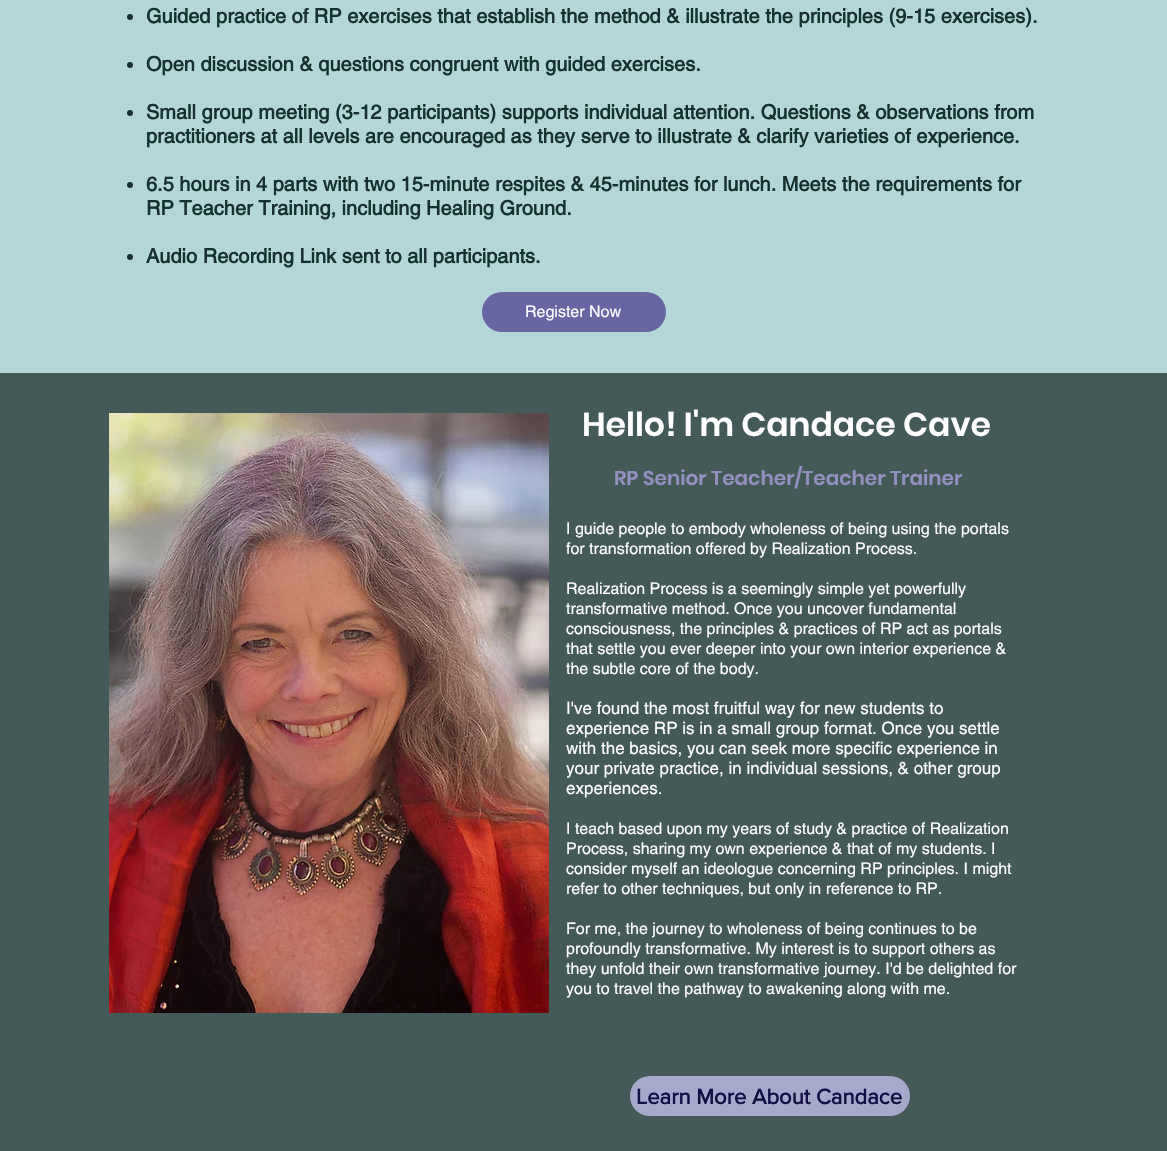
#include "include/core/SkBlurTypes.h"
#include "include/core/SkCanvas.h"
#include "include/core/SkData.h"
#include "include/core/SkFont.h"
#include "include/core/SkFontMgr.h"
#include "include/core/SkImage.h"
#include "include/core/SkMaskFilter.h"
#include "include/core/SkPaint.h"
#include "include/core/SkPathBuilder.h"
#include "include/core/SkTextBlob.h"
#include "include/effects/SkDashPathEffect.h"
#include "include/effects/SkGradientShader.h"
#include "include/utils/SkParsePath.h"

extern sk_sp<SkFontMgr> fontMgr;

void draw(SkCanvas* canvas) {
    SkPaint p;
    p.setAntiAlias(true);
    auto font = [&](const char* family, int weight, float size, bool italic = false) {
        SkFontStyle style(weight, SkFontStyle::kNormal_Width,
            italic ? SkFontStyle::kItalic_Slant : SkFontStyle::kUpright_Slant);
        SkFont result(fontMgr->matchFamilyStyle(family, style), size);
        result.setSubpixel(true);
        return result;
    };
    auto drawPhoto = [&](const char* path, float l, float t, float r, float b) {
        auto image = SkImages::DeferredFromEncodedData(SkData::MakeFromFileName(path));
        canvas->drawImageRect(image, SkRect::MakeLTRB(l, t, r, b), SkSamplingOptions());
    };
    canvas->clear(0xFFB3D7D9);
    p.setColor(0xFF15302E);
    canvas->drawCircle(130, 17, 3, p);
    auto font1 = font("helvetica", 700, 20);
    canvas->drawString("Guided practice of RP exercises that establish the method & illustrate the principles (9-15 exercises).", 146, 23, font1, p);
    canvas->drawCircle(130, 65, 3, p);
    canvas->drawString("Open discussion & questions congruent with guided exercises.", 146, 71, font1, p);
    canvas->drawCircle(130, 113, 3, p);
    canvas->drawString("Small group meeting (3-12 participants) supports individual attention. Questions & observations from", 146, 119, font1, p);
    canvas->drawString("practitioners at all levels are encouraged as they serve to illustrate & clarify varieties of experience.", 146, 143, font1, p);
    canvas->drawCircle(130, 185, 3, p);
    canvas->drawString("6.5 hours in 4 parts with two 15-minute respites & 45-minutes for lunch. Meets the requirements for", 146, 191, font1, p);
    canvas->drawString("RP Teacher Training, including Healing Ground.", 146, 215, font1, p);
    canvas->drawCircle(130, 257, 3, p);
    canvas->drawString("Audio Recording Link sent to all participants.", 146, 263, font1, p);
    p.setColor(0xFF6865A3);
    canvas->drawRoundRect(SkRect::MakeLTRB(482, 292, 666, 332), 20, 20, p);
    auto font2 = font("helvetica", 400, 16);
    p.setColor(0xFFFFFFFF);
    canvas->drawString("Register Now", 525, 317, font2, p);
    p.setColor(0xFF445A58);
    canvas->drawRect(SkRect::MakeLTRB(0, 373, 1167, 1151), p);
    drawPhoto("media/1.png", 109, 413, 549, 1013);
    auto font3 = font("Poppins", 600, 33);
    p.setColor(0xFFFFFFFF);
    canvas->drawString("Hello! I'm Candace Cave", 582, 436, font3, p);
    auto font4 = font("Poppins", 600, 20);
    p.setColor(0xFF9391C2);
    canvas->drawString("RP Senior Teacher/Teacher Trainer", 614, 485, font4, p);
    p.setColor(0xFFFFFFFF);
    {
        const struct { const char* s; float x, y; } items[] = {
            {"I guide people to embody wholeness of being using the portals", 566, 534},
            {"for transformation offered by Realization Process.", 566, 554},
            {"Realization Process is a seemingly simple yet powerfully", 566, 594},
            {"transformative method. Once you uncover fundamental", 566, 614},
            {"consciousness, the principles & practices of RP act as portals", 566, 634},
            {"that settle you ever deeper into your own interior experience &", 566, 654},
            {"the subtle core of the body.", 566, 674},
        };
        for (auto [s, x, y] : items) {
            canvas->drawString(s, x, y, font2, p);
        }
    }
    auto font5 = font("helvetica", 400, 17);
    {
        const struct { const char* s; float x, y; } items[] = {
            {"I've found the most fruitful way for new students to", 566, 714},
            {"experience RP is in a small group format. Once you settle", 566, 734},
            {"with the basics, you can seek more specific experience in", 566, 754},
            {"your private practice, in individual sessions, & other group", 566, 774},
            {"experiences.", 566, 794},
        };
        for (auto [s, x, y] : items) {
            canvas->drawString(s, x, y, font5, p);
        }
    }
    {
        const struct { const char* s; float x, y; } items[] = {
            {"I teach based upon my years of study & practice of Realization", 566, 834},
            {"Process, sharing my own experience & that of my students. I", 566, 854},
            {"consider myself an ideologue concerning RP principles. I might", 566, 874},
            {"refer to other techniques, but only in reference to RP.", 566, 894},
            {"For me, the journey to wholeness of being continues to be", 566, 934},
            {"profoundly transformative. My interest is to support others as", 566, 954},
            {"they unfold their own transformative journey. I'd be delighted for", 566, 974},
            {"you to travel the pathway to awakening along with me.", 566, 994},
        };
        for (auto [s, x, y] : items) {
            canvas->drawString(s, x, y, font2, p);
        }
    }
    p.setColor(0xFFA6A8CC);
    canvas->drawRoundRect(SkRect::MakeLTRB(630, 1076, 910, 1116), 20, 20, p);
    auto font6 = font("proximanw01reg", 700, 22);
    p.setColor(0xFF121042);
    canvas->drawString("Learn More About Candace", 636, 1104, font6, p);
}
